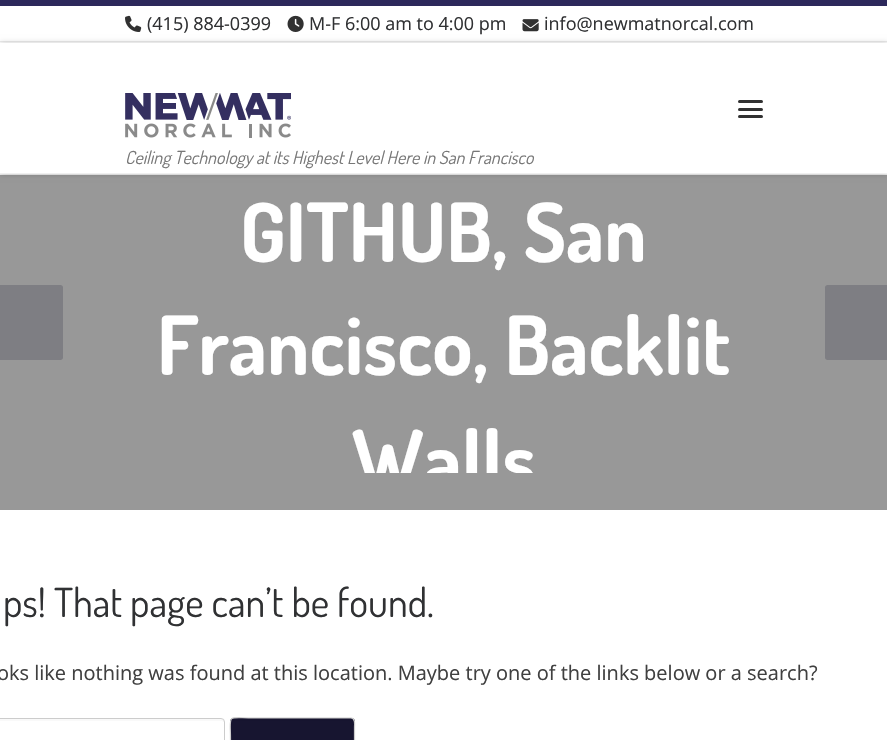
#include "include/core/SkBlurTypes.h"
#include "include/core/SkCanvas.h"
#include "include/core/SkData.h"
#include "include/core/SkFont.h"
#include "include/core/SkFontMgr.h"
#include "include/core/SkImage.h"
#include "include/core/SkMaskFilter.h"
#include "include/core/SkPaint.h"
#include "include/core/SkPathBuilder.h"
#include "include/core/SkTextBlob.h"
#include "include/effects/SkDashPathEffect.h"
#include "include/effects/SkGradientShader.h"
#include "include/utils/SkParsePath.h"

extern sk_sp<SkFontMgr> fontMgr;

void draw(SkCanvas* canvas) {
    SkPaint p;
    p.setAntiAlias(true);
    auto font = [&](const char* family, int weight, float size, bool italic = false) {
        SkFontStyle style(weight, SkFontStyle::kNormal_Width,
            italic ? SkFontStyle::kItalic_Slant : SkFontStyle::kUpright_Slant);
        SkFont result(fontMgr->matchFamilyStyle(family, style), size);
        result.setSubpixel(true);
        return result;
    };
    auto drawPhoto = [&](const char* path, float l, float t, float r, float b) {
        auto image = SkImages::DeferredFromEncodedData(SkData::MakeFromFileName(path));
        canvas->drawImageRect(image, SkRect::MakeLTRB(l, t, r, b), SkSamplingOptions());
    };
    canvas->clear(0xFFFFFFFF);
    p.setColor(0xFF2C285B);
    canvas->drawRect(SkRect::MakeLTRB(0, 0, 887, 6), p);
    p.setColor(0xFFECECEC);
    canvas->drawRect(SkRect::MakeLTRB(0, 41, 887, 42), p);
    drawPhoto("media/1.png", 125, 15, 142, 32);
    auto font1 = font("Open Sans", 400, 18);
    p.setColor(0xFF303133);
    canvas->drawString("(415) 884-0399", 147, 30, font1, p);
    drawPhoto("media/2.png", 287, 15, 304, 32);
    p.setColor(0xFFEFEFEF);
    canvas->drawPath(SkPathBuilder().moveTo(0, 174).lineTo(0, 175).lineTo(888, 175).lineTo(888, 44).lineTo(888, 174).close().detach(), p);
    p.setColor(0xFF989898);
    canvas->drawRect(SkRect::MakeLTRB(0, 175, 887, 510), p);
    p.setColor(0x33000000);
    p.setMaskFilter(SkMaskFilter::MakeBlur(kNormal_SkBlurStyle, 3));
    canvas->drawRect(SkRect::MakeLTRB(0, 43, 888, 174), p);
    p.setMaskFilter(nullptr);
    p.setColor(0xFF303133);
    canvas->drawString("M-F 6:00 am to 4:00 pm", 309, 30, font1, p);
    drawPhoto("media/3.png", 522, 19, 539, 32);
    canvas->drawString("info@newmatnorcal.com", 544, 30, font1, p);
    p.setColor(0xFFFFFFFF);
    canvas->drawRect(SkRect::MakeLTRB(0, 43, 887, 173), p);
    p.setColor(0xFF313131);
    canvas->drawRoundRect(SkRect::MakeLTRB(738, 100, 763, 103), 1.5f, 1.5f, p);
    canvas->drawRoundRect(SkRect::MakeLTRB(738, 108, 763, 111), 1.5f, 1.5f, p);
    canvas->drawRoundRect(SkRect::MakeLTRB(738, 115, 763, 118), 1.5f, 1.5f, p);
    drawPhoto("media/4.png", 125, 93, 291, 138);
    auto font2 = font("Dosis", 400, 18, true);
    p.setColor(0xFF777777);
    canvas->drawString("Ceiling Technology at its Highest Level Here in San Francisco", 125, 164, font2, p);
    p.setColor(0xFFF0F0F0);
    canvas->drawRect(SkRect::MakeLTRB(0, 173, 887, 174), p);
    auto font3 = font("Dosis", 700, 81.25f);
    p.setColor(0xFFFFFFFF);
    canvas->drawString("GITHUB, San", 240, 262, font3, p);
    canvas->drawString("Francisco, Backlit", 157, 375, font3, p);
    canvas->save();
    canvas->clipRect(SkRect::MakeLTRB(89, 175, 799, 473));
    canvas->drawString("Walls", 352, 489, font3, p);
    canvas->restore();
    p.setColor(0xFF7E7E83);
    canvas->drawPath(SkPathBuilder().moveTo(0, 285).lineTo(60.5f, 285).cubicTo(62, 285, 63, 286, 63, 287.5f).lineTo(63, 357.5f).cubicTo(63, 359, 62, 360, 60.5f, 360).lineTo(0, 360).close().detach(), p);
    canvas->drawPath(SkPathBuilder().moveTo(827.5f, 285).lineTo(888, 285).lineTo(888, 360).lineTo(827.5f, 360).cubicTo(826, 360, 825, 359, 825, 357.5f).lineTo(825, 287.5f).cubicTo(825, 286, 826, 285, 827.5f, 285).close().detach(), p);
    auto font4 = font("Dosis", 400, 40);
    p.setColor(0xFF303133);
    canvas->drawString("ps! That page can’t be found.", 3, 617, font4, p);
    auto font5 = font("Open Sans", 400, 20);
    p.setColor(0xFF404040);
    canvas->drawString("oks like nothing was found at this location. Maybe try one of the links below or a search?", -3, 680, font5, p);
    p.setColor(0xFFF9F9F9);
    canvas->drawPath(SkPathBuilder().moveTo(-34, 721).lineTo(222, 721).lineTo(224, 722).lineTo(224, 724).lineTo(224, 722).cubicTo(224, 720, 223, 719, 222, 719).lineTo(-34, 719).cubicTo(-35, 719, -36, 720, -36, 722).lineTo(-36, 724).cubicTo(-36, 722, -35, 721, -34, 721).close().detach(), p);
    p.setStyle(SkPaint::kStroke_Style);
    p.setStrokeWidth(1);
    p.setColor(0xFFCCCCCC);
    canvas->drawRoundRect(SkRect::MakeLTRB(-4.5f, 718.5f, 224.5f, 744.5f), 3.5f, 3.5f, p);
    p.setStyle(SkPaint::kFill_Style);
    p.setColor(0xFF171530);
    canvas->drawRoundRect(SkRect::MakeLTRB(230, 718, 355, 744), 4, 4, p);
    p.setColor(0xFF16142F);
    canvas->drawPath(SkPathBuilder().moveTo(234, 721).lineTo(351, 721).cubicTo(353, 721, 354, 722, 354, 724).lineTo(354, 722).cubicTo(354, 720, 353, 719, 352, 719).lineTo(234, 719).cubicTo(232, 719, 231, 720, 231, 722).lineTo(231, 724).cubicTo(231, 722, 232, 721, 234, 721).close().detach(), p);
    p.setStyle(SkPaint::kStroke_Style);
    p.setStrokeWidth(1.2f);
    p.setColor(0xFFCCCCCC);
    canvas->drawPath(SkPathBuilder().moveTo(231.5f, 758.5f).cubicTo(229.5f, 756.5f, 230.5f, 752, 230.5f, 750.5f).lineTo(230.5f, 739).cubicTo(230.5f, 713, 226, 718, 253.5f, 718).lineTo(351, 718).cubicTo(355.5f, 718, 354.5f, 725, 354.5f, 727).lineTo(354.5f, 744.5f).cubicTo(354.5f, 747, 355.5f, 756, 353.5f, 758.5f).detach(), p);
}
